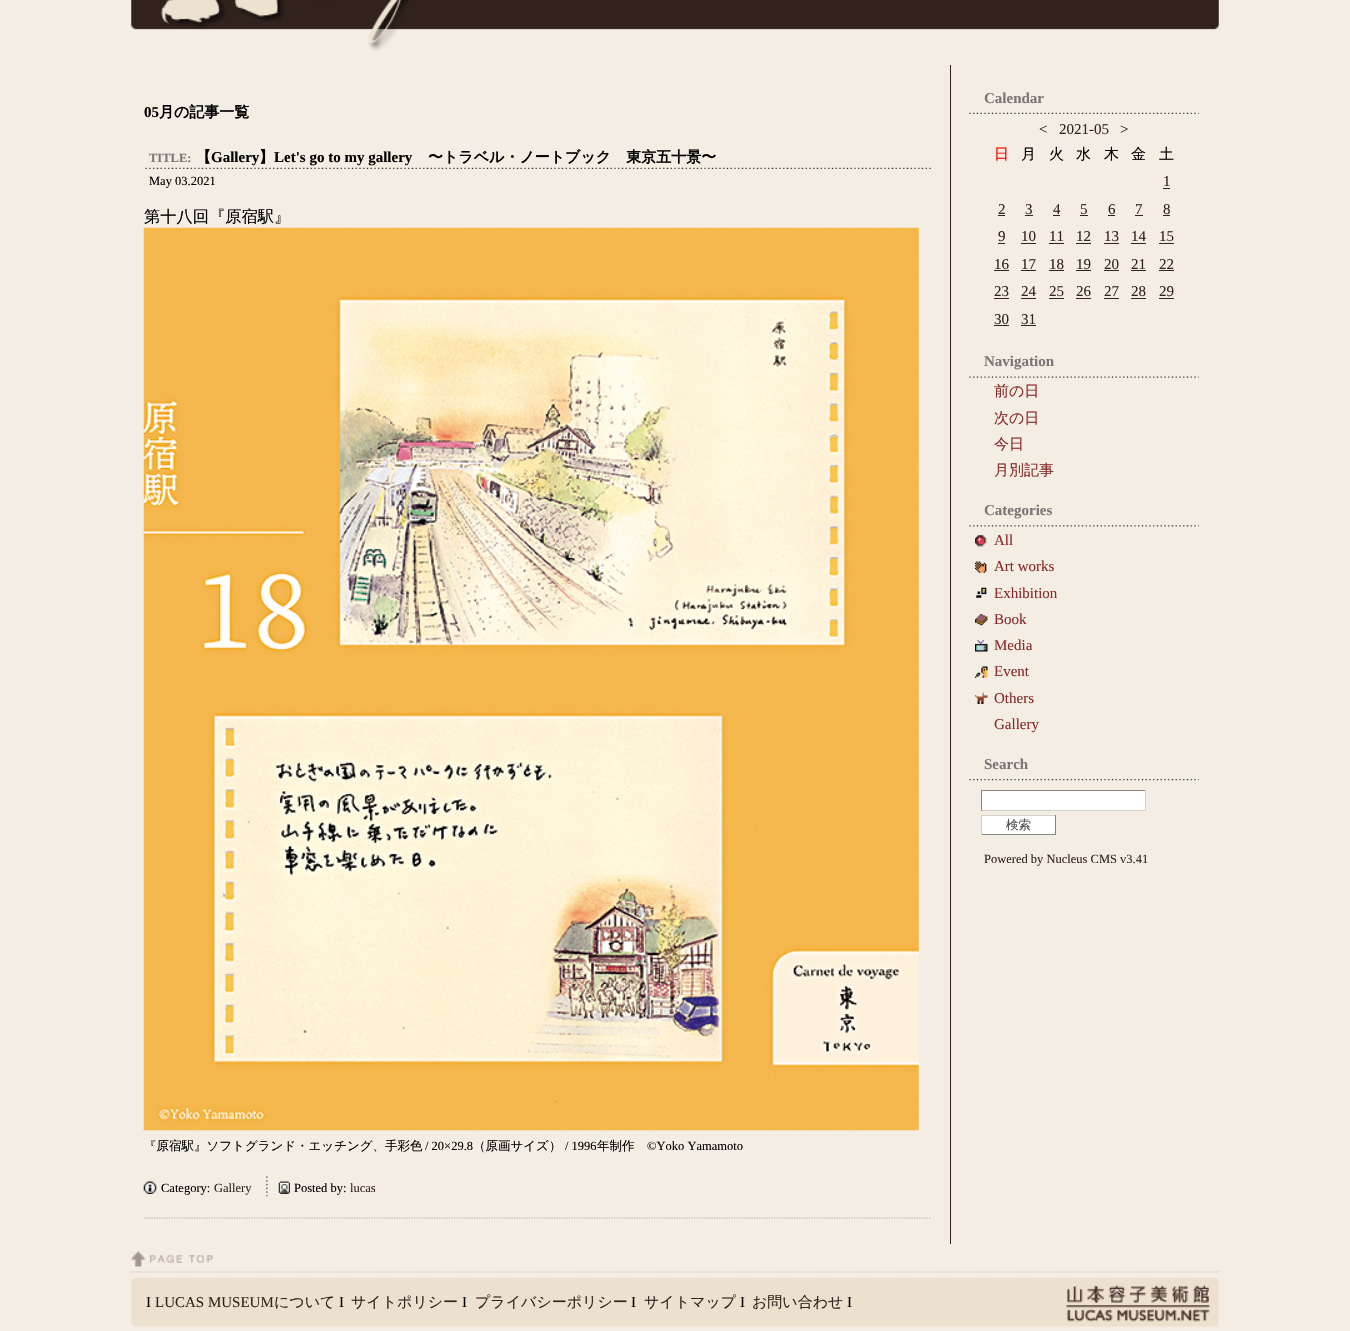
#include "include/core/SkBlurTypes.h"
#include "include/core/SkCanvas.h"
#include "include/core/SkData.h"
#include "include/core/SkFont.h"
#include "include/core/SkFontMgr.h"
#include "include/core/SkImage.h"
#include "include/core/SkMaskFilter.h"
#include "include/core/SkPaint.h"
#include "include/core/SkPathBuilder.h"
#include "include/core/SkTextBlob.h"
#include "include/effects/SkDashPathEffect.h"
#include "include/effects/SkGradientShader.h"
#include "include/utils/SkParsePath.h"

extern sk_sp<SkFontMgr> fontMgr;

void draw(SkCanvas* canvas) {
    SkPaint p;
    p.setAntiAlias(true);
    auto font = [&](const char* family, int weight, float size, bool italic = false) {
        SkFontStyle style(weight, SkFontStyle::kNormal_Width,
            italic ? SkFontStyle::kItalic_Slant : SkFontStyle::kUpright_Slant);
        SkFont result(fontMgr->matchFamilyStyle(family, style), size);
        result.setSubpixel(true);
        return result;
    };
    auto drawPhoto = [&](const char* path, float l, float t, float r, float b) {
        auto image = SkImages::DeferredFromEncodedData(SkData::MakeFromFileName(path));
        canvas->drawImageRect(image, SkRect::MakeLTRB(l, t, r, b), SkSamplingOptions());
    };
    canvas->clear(0xFFF4EDE3);
    drawPhoto("media/1.png", 131, 0, 1219, 51);
    p.setColor(0xFF31221D);
    canvas->drawRect(SkRect::MakeLTRB(950, 65, 951, 1244), p);
    auto font1 = font("Liberation Serif", 700, 15);
    p.setColor(0xFF000000);
    canvas->drawString("05", 144, 117, font1, p);
    auto font2 = font("WenQuanYi Zen Hei", 700, 15);
    canvas->drawString("月の記事一覧", 159, 117, font2, p);
    p.setStyle(SkPaint::kStroke_Style);
    p.setStrokeWidth(1.2f);
    p.setColor(0xFFAAAAAA);
    p.setPathEffect(SkDashPathEffect::Make({{1.25f, 1.25f}}, 0));
    canvas->drawPath(SkPathBuilder().moveTo(144, 1218).lineTo(931, 1218).detach(), p);
    p.setPathEffect(nullptr);
    drawPhoto("media/2.png", 143, 167, 931, 169);
    auto font3 = font("Liberation Serif", 700, 12.5f);
    p.setStyle(SkPaint::kFill_Style);
    p.setColor(0xFF7A7677);
    canvas->drawString("TITLE:", 149, 162, font3, p);
    p.setColor(0xFF000000);
    canvas->drawString("【", 196, 162, font2, p);
    canvas->drawString("Gallery", 211, 162, font1, p);
    canvas->drawString("】", 259, 162, font2, p);
    canvas->drawString("Let's go to my gallery", 274, 162, font1, p);
    canvas->drawString("〜トラベル・ノートブック　東京五十景〜", 428, 162, font2, p);
    auto font4 = font("Liberation Serif", 400, 12.5f);
    canvas->drawString("May 03.2021", 149, 185, font4, p);
    auto font5 = font("WenQuanYi Zen Hei", 500, 16.25f);
    canvas->drawString("第十八回『原宿駅』", 144, 222, font5, p);
    drawPhoto("media/3.png", 143, 227, 919, 1131);
    auto font6 = font("WenQuanYi Zen Hei", 500, 12.5f);
    canvas->drawString("『原宿駅』ソフトグランド・エッチング、手彩色", 144, 1150, font6, p);
    canvas->drawString("/ 20×29.8", 425, 1150, font4, p);
    canvas->drawString("（原画サイズ）", 473, 1150, font6, p);
    canvas->drawString("/ 1996", 565, 1150, font4, p);
    canvas->drawString("年制作", 597, 1150, font6, p);
    canvas->drawString("©Yoko Yamamoto", 647, 1150, font4, p);
    drawPhoto("media/4.png", 143, 1181, 157, 1194);
    canvas->drawString("Category:", 161, 1192, font4, p);
    p.setColor(0xFF32231E);
    canvas->drawString("Gallery", 214, 1192, font4, p);
    drawPhoto("media/5.png", 266, 1176, 268, 1197);
    drawPhoto("media/6.png", 278, 1181, 290, 1194);
    p.setColor(0xFF000000);
    canvas->drawString("Posted by:", 294, 1192, font4, p);
    p.setColor(0xFF32231E);
    canvas->drawString("lucas", 350, 1192, font4, p);
    drawPhoto("media/7.png", 969, 112, 1199, 114);
    p.setColor(0xFF7A7677);
    canvas->drawString("Calendar", 984, 103, font1, p);
    auto font7 = font("Liberation Serif", 400, 15);
    p.setColor(0xFF32231E);
    {
        const struct { const char* s; float x, y; } items[] = {
            {"<", 1039, 134},
            {"2021-05", 1059, 134},
            {">", 1120, 134},
        };
        for (auto [s, x, y] : items) {
            canvas->drawString(s, x, y, font7, p);
        }
    }
    auto font8 = font("WenQuanYi Zen Hei", 500, 15);
    p.setColor(0xFFFF0000);
    canvas->drawString("日", 994, 159, font8, p);
    p.setColor(0xFF000000);
    {
        const struct { const char* s; float x, y; } items[] = {
            {"月", 1021, 159},
            {"火", 1049, 159},
            {"水", 1076, 159},
            {"木", 1104, 159},
            {"金", 1131, 159},
            {"土", 1159, 159},
        };
        for (auto [s, x, y] : items) {
            canvas->drawString(s, x, y, font8, p);
        }
    }
    p.setColor(0xFF32231E);
    canvas->drawString("1", 1163, 186, font7, p);
    canvas->drawRect(SkRect::MakeLTRB(1163, 188, 1170, 189), p);
    canvas->drawString("2", 998, 214, font7, p);
    canvas->drawRect(SkRect::MakeLTRB(998, 215, 1005, 216), p);
    canvas->drawString("3", 1025, 214, font7, p);
    canvas->drawRect(SkRect::MakeLTRB(1025, 215, 1033, 216), p);
    canvas->drawString("4", 1053, 214, font7, p);
    canvas->drawRect(SkRect::MakeLTRB(1053, 215, 1060, 216), p);
    canvas->drawString("5", 1080, 214, font7, p);
    canvas->drawRect(SkRect::MakeLTRB(1080, 215, 1088, 216), p);
    canvas->drawString("6", 1108, 214, font7, p);
    canvas->drawRect(SkRect::MakeLTRB(1108, 215, 1115, 216), p);
    canvas->drawString("7", 1135, 214, font7, p);
    canvas->drawRect(SkRect::MakeLTRB(1135, 215, 1143, 216), p);
    canvas->drawString("8", 1163, 214, font7, p);
    canvas->drawRect(SkRect::MakeLTRB(1163, 215, 1170, 216), p);
    canvas->drawString("9", 998, 241, font7, p);
    canvas->drawRect(SkRect::MakeLTRB(998, 243, 1005, 244), p);
    canvas->drawString("10", 1021, 241, font7, p);
    canvas->drawRect(SkRect::MakeLTRB(1021, 243, 1036, 244), p);
    canvas->drawString("11", 1049, 241, font7, p);
    canvas->drawRect(SkRect::MakeLTRB(1049, 243, 1064, 244), p);
    canvas->drawString("12", 1076, 241, font7, p);
    canvas->drawRect(SkRect::MakeLTRB(1076, 243, 1091, 244), p);
    canvas->drawString("13", 1104, 241, font7, p);
    canvas->drawRect(SkRect::MakeLTRB(1104, 243, 1119, 244), p);
    canvas->drawString("14", 1131, 241, font7, p);
    canvas->drawRect(SkRect::MakeLTRB(1131, 243, 1146, 244), p);
    canvas->drawString("15", 1159, 241, font7, p);
    canvas->drawRect(SkRect::MakeLTRB(1159, 243, 1174, 244), p);
    canvas->drawString("16", 994, 269, font7, p);
    canvas->drawRect(SkRect::MakeLTRB(994, 270, 1009, 271), p);
    canvas->drawString("17", 1021, 269, font7, p);
    canvas->drawRect(SkRect::MakeLTRB(1021, 270, 1036, 271), p);
    canvas->drawString("18", 1049, 269, font7, p);
    canvas->drawRect(SkRect::MakeLTRB(1049, 270, 1064, 271), p);
    canvas->drawString("19", 1076, 269, font7, p);
    canvas->drawRect(SkRect::MakeLTRB(1076, 270, 1091, 271), p);
    canvas->drawString("20", 1104, 269, font7, p);
    canvas->drawRect(SkRect::MakeLTRB(1104, 270, 1119, 271), p);
    canvas->drawString("21", 1131, 269, font7, p);
    canvas->drawRect(SkRect::MakeLTRB(1131, 270, 1146, 271), p);
    canvas->drawString("22", 1159, 269, font7, p);
    canvas->drawRect(SkRect::MakeLTRB(1159, 270, 1174, 271), p);
    canvas->drawString("23", 994, 296, font7, p);
    canvas->drawRect(SkRect::MakeLTRB(994, 298, 1009, 299), p);
    canvas->drawString("24", 1021, 296, font7, p);
    canvas->drawRect(SkRect::MakeLTRB(1021, 298, 1036, 299), p);
    canvas->drawString("25", 1049, 296, font7, p);
    canvas->drawRect(SkRect::MakeLTRB(1049, 298, 1064, 299), p);
    canvas->drawString("26", 1076, 296, font7, p);
    canvas->drawRect(SkRect::MakeLTRB(1076, 298, 1091, 299), p);
    canvas->drawString("27", 1104, 296, font7, p);
    canvas->drawRect(SkRect::MakeLTRB(1104, 298, 1119, 299), p);
    canvas->drawString("28", 1131, 296, font7, p);
    canvas->drawRect(SkRect::MakeLTRB(1131, 298, 1146, 299), p);
    canvas->drawString("29", 1159, 296, font7, p);
    canvas->drawRect(SkRect::MakeLTRB(1159, 298, 1174, 299), p);
    canvas->drawString("30", 994, 324, font7, p);
    canvas->drawRect(SkRect::MakeLTRB(994, 325, 1009, 326), p);
    canvas->drawString("31", 1021, 324, font7, p);
    canvas->drawRect(SkRect::MakeLTRB(1021, 325, 1036, 326), p);
    drawPhoto("media/8.png", 969, 376, 1199, 378);
    p.setColor(0xFF7A7677);
    canvas->drawString("Navigation", 984, 366, font1, p);
    p.setColor(0xFF892A2A);
    {
        const struct { const char* s; float x, y; } items[] = {
            {"前の日", 994, 396},
            {"次の日", 994, 423},
            {"今日", 994, 449},
            {"月別記事", 994, 475},
        };
        for (auto [s, x, y] : items) {
            canvas->drawString(s, x, y, font8, p);
        }
    }
    drawPhoto("media/9.png", 969, 525, 1199, 527);
    p.setColor(0xFF7A7677);
    canvas->drawString("Categories", 984, 515, font1, p);
    drawPhoto("media/10.png", 975, 535, 987, 547);
    p.setColor(0xFF892A2A);
    canvas->drawString("All", 994, 545, font7, p);
    drawPhoto("media/11.png", 975, 561, 987, 573);
    canvas->drawString("Art works", 994, 571, font7, p);
    drawPhoto("media/12.png", 976, 587, 987, 598);
    canvas->drawString("Exhibition", 994, 598, font7, p);
    drawPhoto("media/13.png", 975, 614, 988, 626);
    canvas->drawString("Book", 994, 624, font7, p);
    drawPhoto("media/14.png", 975, 640, 988, 652);
    canvas->drawString("Media", 994, 650, font7, p);
    drawPhoto("media/15.png", 975, 666, 988, 678);
    canvas->drawString("Event", 994, 676, font7, p);
    drawPhoto("media/16.png", 975, 692, 988, 704);
    canvas->drawString("Others", 994, 703, font7, p);
    canvas->drawString("Gallery", 994, 729, font7, p);
    drawPhoto("media/17.png", 969, 779, 1199, 781);
    p.setColor(0xFF7A7677);
    canvas->drawString("Search", 984, 769, font1, p);
    {
        const struct { float l, t, r, b; SkColor color; } items[] = {
            {982, 791, 1145, 810, 0xFFFFFFFF},
            {981, 790, 1146, 791, 0xFF868686},
            {1145, 790, 1146, 811, 0xFFD4D2CF},
            {981, 810, 1146, 811, 0xFFD4D2CF},
            {981, 790, 982, 811, 0xFF868686},
            {982, 816, 1055, 834, 0xFFFFFFFF},
            {981, 815, 1056, 816, 0xFFD4D2CF},
            {1055, 815, 1056, 835, 0xFF868686},
            {981, 834, 1056, 835, 0xFF868686},
            {981, 815, 982, 835, 0xFFD4D2CF},
        };
        for (auto [l, t, r, b, color] : items) {
            p.setColor(color);
            canvas->drawRect(SkRect::MakeLTRB(l, t, r, b), p);
        }
    }
    p.setColor(0xFF494949);
    canvas->drawString("検索", 1006, 829, font6, p);
    p.setColor(0xFF32231E);
    canvas->drawString("Powered by Nucleus CMS v3.41", 984, 863, font4, p);
    p.setStyle(SkPaint::kStroke_Style);
    p.setColor(0xFFCAC2BB);
    p.setPathEffect(SkDashPathEffect::Make({{1.25f, 1.25f}}, 0));
    canvas->drawPath(SkPathBuilder().moveTo(131, 1272).lineTo(1219, 1272).detach(), p);
    p.setPathEffect(nullptr);
    drawPhoto("media/18.png", 131, 1251, 213, 1267);
    drawPhoto("media/19.png", 131, 1277, 1219, 1327);
    p.setStyle(SkPaint::kFill_Style);
    p.setColor(0xFF000000);
    canvas->drawString("I", 146, 1307, font7, p);
    p.setColor(0xFF32231E);
    canvas->drawString("LUCAS MUSEUM", 155, 1307, font7, p);
    canvas->drawString("について", 274, 1307, font8, p);
    p.setColor(0xFF000000);
    canvas->drawString("I", 339, 1307, font7, p);
    p.setColor(0xFF32231E);
    canvas->drawString("サイトポリシー", 351, 1307, font8, p);
    p.setColor(0xFF000000);
    canvas->drawString("I", 462, 1307, font7, p);
    p.setColor(0xFF32231E);
    canvas->drawString("プライバシーポリシー", 475, 1307, font8, p);
    p.setColor(0xFF000000);
    canvas->drawString("I", 631, 1307, font7, p);
    p.setColor(0xFF32231E);
    canvas->drawString("サイトマップ", 644, 1307, font8, p);
    p.setColor(0xFF000000);
    canvas->drawString("I", 740, 1307, font7, p);
    p.setColor(0xFF32231E);
    canvas->drawString("お問い合わせ", 752, 1307, font8, p);
    p.setColor(0xFF000000);
    canvas->drawString("I", 847, 1307, font7, p);
}
